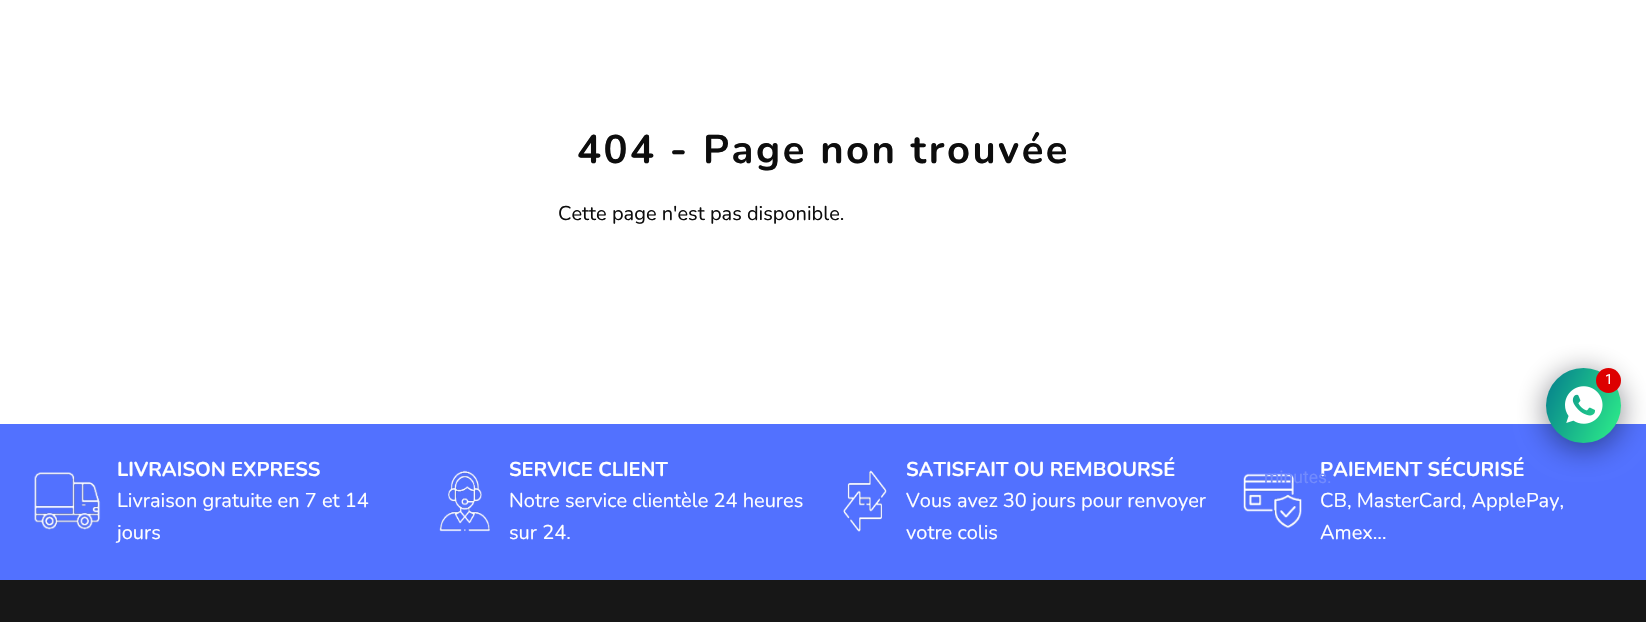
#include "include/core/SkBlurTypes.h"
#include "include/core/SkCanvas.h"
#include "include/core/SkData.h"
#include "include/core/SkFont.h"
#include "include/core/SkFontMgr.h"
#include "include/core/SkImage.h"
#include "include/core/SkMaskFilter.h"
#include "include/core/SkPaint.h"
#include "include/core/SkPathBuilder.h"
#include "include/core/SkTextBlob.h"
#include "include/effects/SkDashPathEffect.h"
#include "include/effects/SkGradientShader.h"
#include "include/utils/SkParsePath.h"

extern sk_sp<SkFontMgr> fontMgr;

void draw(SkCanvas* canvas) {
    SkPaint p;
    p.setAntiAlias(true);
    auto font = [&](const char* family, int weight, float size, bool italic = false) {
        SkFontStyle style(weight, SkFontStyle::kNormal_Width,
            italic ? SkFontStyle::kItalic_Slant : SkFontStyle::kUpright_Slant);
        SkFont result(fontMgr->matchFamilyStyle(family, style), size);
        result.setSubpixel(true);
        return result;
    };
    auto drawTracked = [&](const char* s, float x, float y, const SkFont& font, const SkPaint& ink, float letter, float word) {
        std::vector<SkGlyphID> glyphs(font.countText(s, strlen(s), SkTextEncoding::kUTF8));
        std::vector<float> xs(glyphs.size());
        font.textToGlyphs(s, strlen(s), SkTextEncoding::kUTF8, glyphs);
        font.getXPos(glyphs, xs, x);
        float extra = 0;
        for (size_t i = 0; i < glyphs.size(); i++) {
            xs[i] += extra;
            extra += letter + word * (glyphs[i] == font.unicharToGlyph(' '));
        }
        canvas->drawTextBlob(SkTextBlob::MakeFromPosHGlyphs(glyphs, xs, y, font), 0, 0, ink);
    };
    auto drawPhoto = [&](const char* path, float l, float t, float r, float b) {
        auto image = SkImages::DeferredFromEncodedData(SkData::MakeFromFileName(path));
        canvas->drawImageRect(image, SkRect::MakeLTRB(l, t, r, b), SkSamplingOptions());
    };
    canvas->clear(0xFFFFFFFF);
    auto font1 = font("Nunito", 700, 40);
    p.setColor(0xFF0D0D0D);
    drawTracked("404 - Page non trouvée", 577, 163, font1, p, 2.5f, 0);
    auto font2 = font("Nunito", 400, 20);
    canvas->drawString("Cette page n'est pas disponible.", 558, 220, font2, p);
    p.setColor(0xFF5271FF);
    canvas->drawRect(SkRect::MakeLTRB(0, 424, 1646, 580), p);
    drawPhoto("media/1.png", 34, 472, 101, 530);
    auto font3 = font("Nunito", 700, 20);
    p.setColor(0xFFFFFFFF);
    canvas->drawString("LIVRAISON EXPRESS", 117, 476, font3, p);
    canvas->drawString("Livraison gratuite en 7 et 14", 117, 507, font2, p);
    canvas->drawString("jours", 117, 539, font2, p);
    drawPhoto("media/2.png", 439, 470, 490, 532);
    canvas->drawString("SERVICE CLIENT", 509, 476, font3, p);
    canvas->drawString("Notre service clientèle 24 heures", 509, 507, font2, p);
    canvas->drawString("sur 24.", 509, 539, font2, p);
    drawPhoto("media/3.png", 843, 470, 887, 532);
    canvas->drawString("SATISFAIT OU REMBOURSÉ", 906, 476, font3, p);
    canvas->drawString("Vous avez 30 jours pour renvoyer", 906, 507, font2, p);
    canvas->drawString("votre colis", 906, 539, font2, p);
    drawPhoto("media/4.png", 1243, 473, 1302, 529);
    canvas->drawString("PAIEMENT SÉCURISÉ", 1320, 476, font3, p);
    canvas->drawString("CB, MasterCard, ApplePay,", 1320, 507, font2, p);
    canvas->drawString("Amex…", 1320, 539, font2, p);
    p.setColor(0xFF171717);
    canvas->drawRect(SkRect::MakeLTRB(0, 580, 1646, 622), p);
    p.setColor(0x80020610);
    p.setMaskFilter(SkMaskFilter::MakeBlur(kNormal_SkBlurStyle, 15));
    canvas->drawRoundRect(SkRect::MakeLTRB(1546, 373, 1621, 448), 37.5f, 37.5f, p);
    p.setMaskFilter(nullptr);
    {
        const SkColor colors[] = {0xFF047C8D, 0xFF2FF289};
        const float stops[] = {0, 1};
        const SkPoint ends[] = {{1539, 384}, {1629, 426}};
        p.setShader(SkGradientShader::MakeLinear(ends, colors, stops, 2, SkTileMode::kClamp));
        p.setAlpha(255);
    }
    canvas->drawCircle(1583.5f, 405.5f, 37.5f, p);
    drawPhoto("media/5.png", 1565, 386, 1603, 424);
    p.setShader(nullptr);
    p.setColor(0xFFDD0000);
    canvas->drawCircle(1608.5f, 380.5f, 12.5f, p);
    auto font4 = font("Roboto", 400, 14);
    p.setColor(0xFFFFFFFF);
    canvas->drawString("1", 1605, 384, font4, p);
    auto font5 = font("Roboto", 400, 17.5f);
    p.setColor(0xFF728BFD);
    canvas->drawString("minutes.", 1264, 483, font5, p);
}
